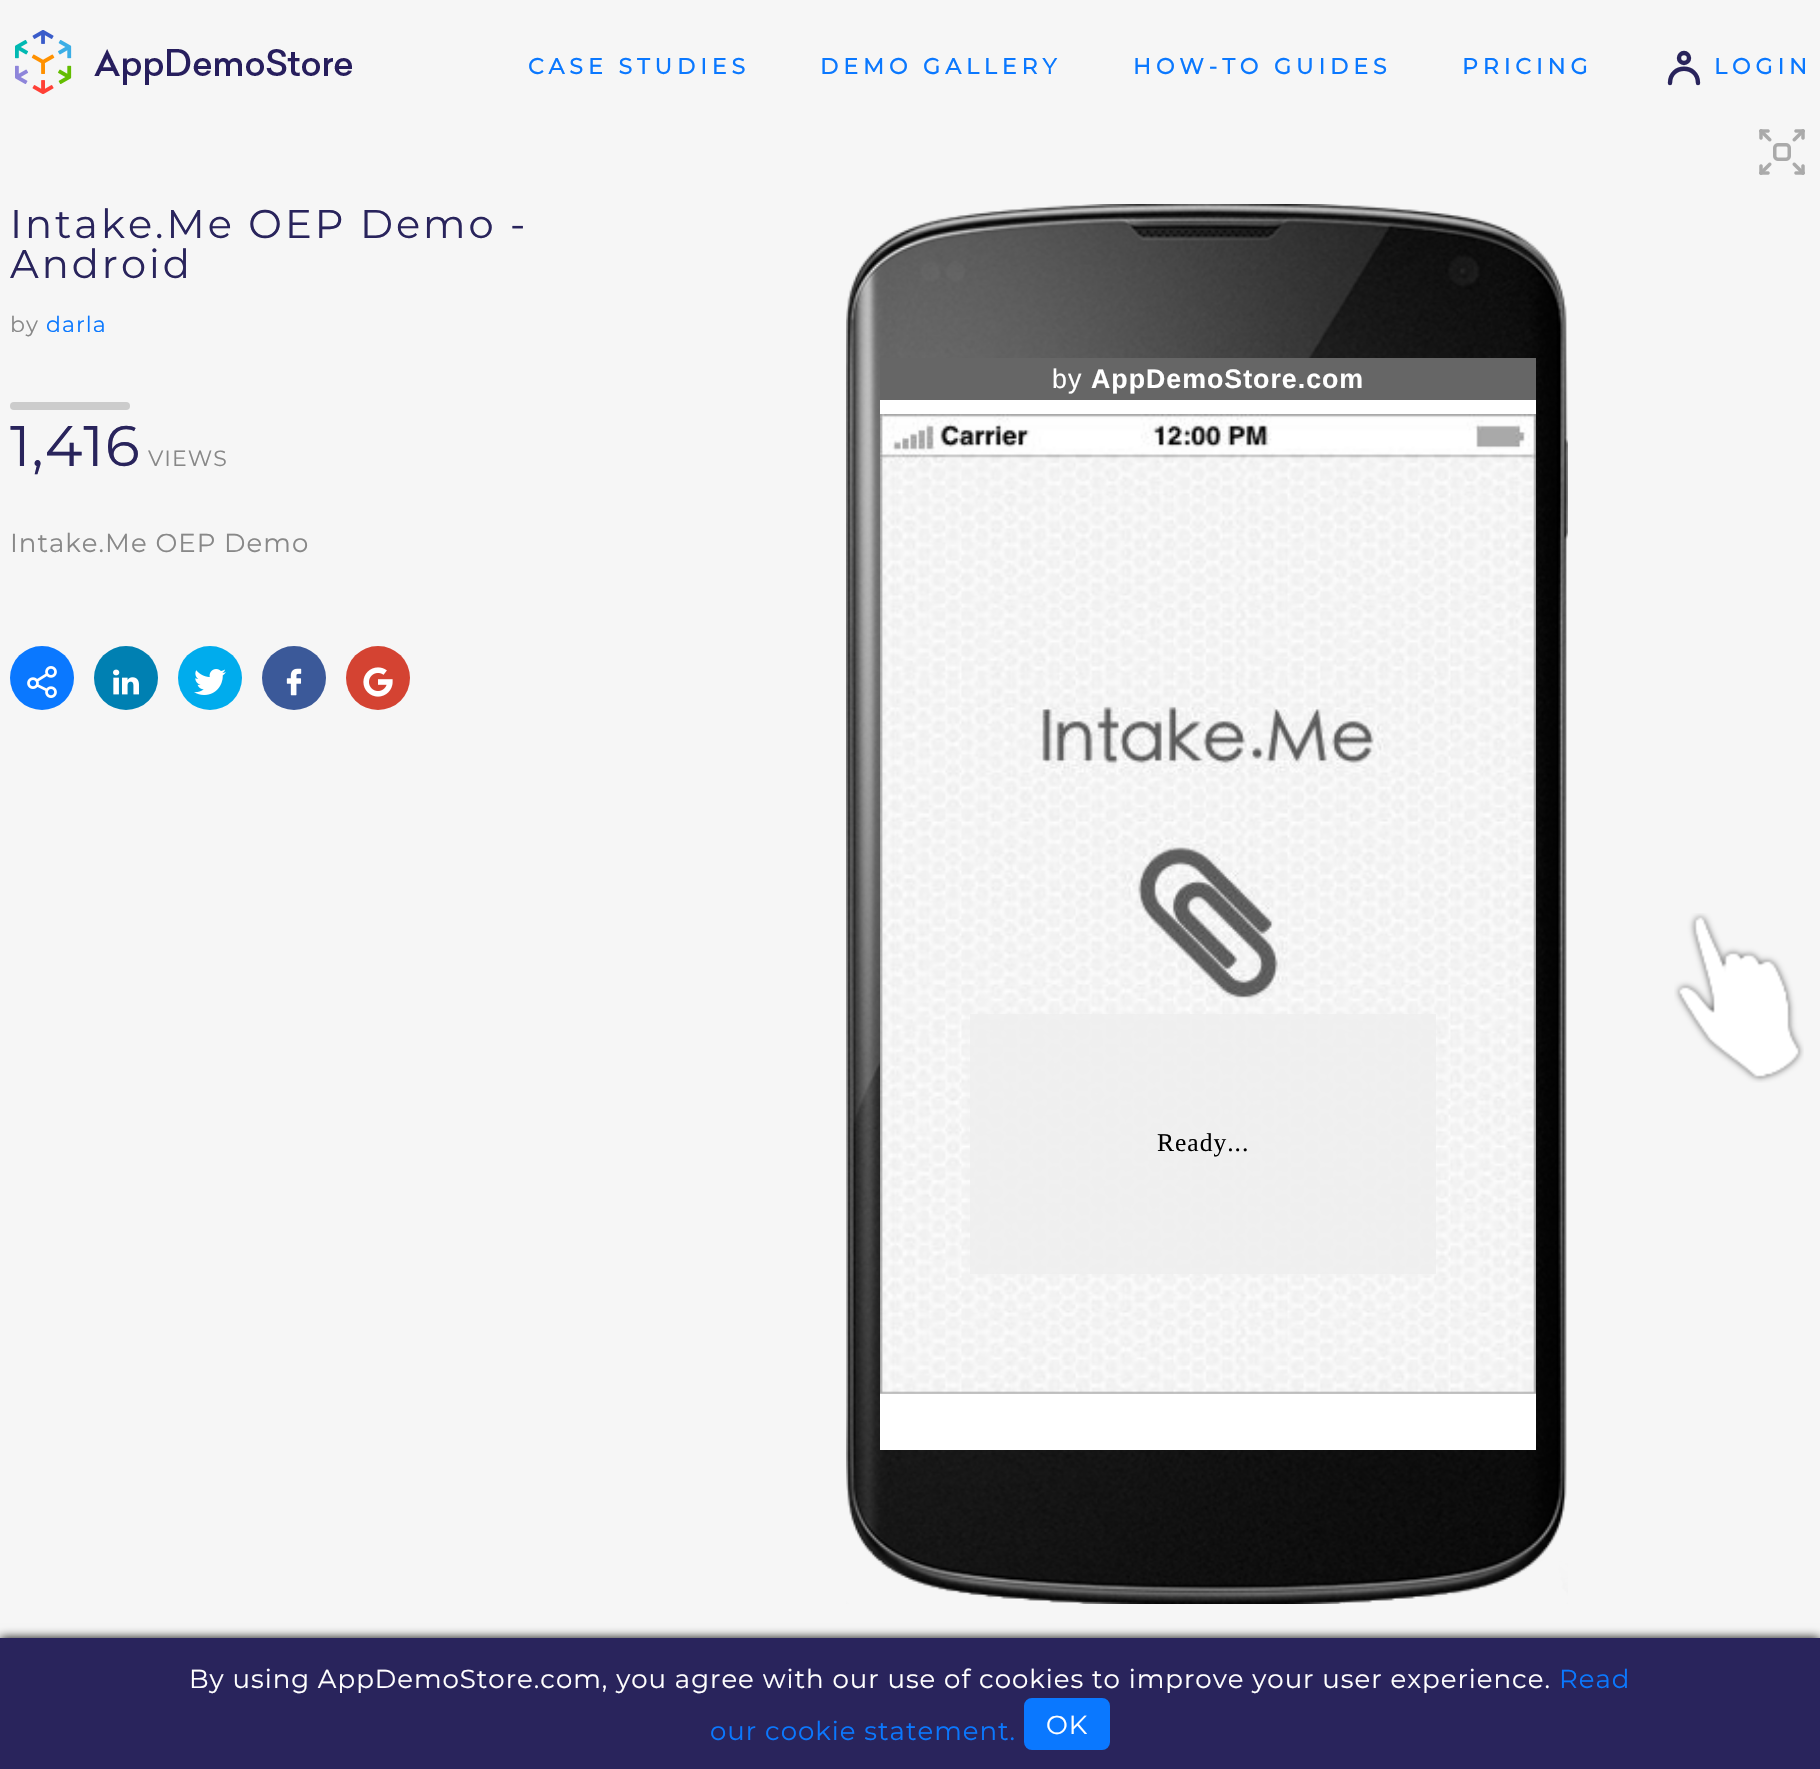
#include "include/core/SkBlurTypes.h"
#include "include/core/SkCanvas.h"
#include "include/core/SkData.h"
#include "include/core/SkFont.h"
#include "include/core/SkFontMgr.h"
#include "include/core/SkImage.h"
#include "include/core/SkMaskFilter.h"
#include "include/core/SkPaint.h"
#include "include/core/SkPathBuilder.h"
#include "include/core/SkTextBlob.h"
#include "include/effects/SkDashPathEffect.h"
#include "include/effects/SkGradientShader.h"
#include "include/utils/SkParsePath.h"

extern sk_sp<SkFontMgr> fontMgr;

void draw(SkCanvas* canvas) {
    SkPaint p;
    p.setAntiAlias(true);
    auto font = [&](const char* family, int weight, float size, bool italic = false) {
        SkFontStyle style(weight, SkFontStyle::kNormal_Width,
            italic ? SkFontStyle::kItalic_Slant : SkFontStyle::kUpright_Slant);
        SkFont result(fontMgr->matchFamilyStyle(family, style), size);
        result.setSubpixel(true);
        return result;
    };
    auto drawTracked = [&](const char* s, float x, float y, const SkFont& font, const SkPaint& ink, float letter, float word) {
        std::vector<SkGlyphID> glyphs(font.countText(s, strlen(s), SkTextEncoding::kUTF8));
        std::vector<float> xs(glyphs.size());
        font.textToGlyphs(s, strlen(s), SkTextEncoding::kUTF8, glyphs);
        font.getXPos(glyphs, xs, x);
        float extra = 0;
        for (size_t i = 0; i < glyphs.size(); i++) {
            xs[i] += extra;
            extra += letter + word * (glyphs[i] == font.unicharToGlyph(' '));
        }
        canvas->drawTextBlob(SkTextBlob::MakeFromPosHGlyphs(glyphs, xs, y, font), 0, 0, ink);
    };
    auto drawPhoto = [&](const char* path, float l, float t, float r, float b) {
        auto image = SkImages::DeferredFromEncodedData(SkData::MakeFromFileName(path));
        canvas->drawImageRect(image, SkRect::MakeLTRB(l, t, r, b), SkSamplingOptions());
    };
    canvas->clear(0xFFF6F6F6);
    drawPhoto("media/1.png", 15, 30, 352, 94);
    auto font1 = font("Montserrat", 700, 22);
    p.setColor(0xFF0A78FF);
    {
        const struct { const char* s; float x, y; } items[] = {
            {"CASE STUDIES", 528, 74},
            {"DEMO GALLERY", 820, 74},
            {"HOW-TO GUIDES", 1133, 74},
            {"PRICING", 1462, 74},
            {"LOGIN", 1714, 74},
        };
        for (auto [s, x, y] : items) {
            drawTracked(s, x, y, font1, p, 5, 0);
        }
    }
    p.setStyle(SkPaint::kStroke_Style);
    p.setStrokeWidth(4.4f);
    p.setStrokeCap(SkPaint::kRound_Cap);
    p.setColor(0xFF29245C);
    canvas->drawPath(SkPathBuilder().moveTo(1670, 83).cubicTo(1670, 64, 1698, 64, 1698, 83).detach(), p);
    p.setStrokeCap(SkPaint::kButt_Cap);
    canvas->drawCircle(1684, 58, 5, p);
    auto font2 = font("Montserrat", 100, 40);
    p.setStyle(SkPaint::kFill_Style);
    drawTracked("Intake.Me OEP Demo -", 10, 238, font2, p, 3, 0);
    drawTracked("Android", 10, 278, font2, p, 3, 0);
    auto font3 = font("Montserrat", 100, 22);
    p.setColor(0xFF888888);
    drawTracked("by", 10, 332, font3, p, 1, 0);
    p.setColor(0xFF0A78FF);
    drawTracked("darla", 46, 332, font3, p, 1, 0);
    p.setStyle(SkPaint::kStroke_Style);
    p.setStrokeWidth(8);
    p.setStrokeCap(SkPaint::kRound_Cap);
    p.setColor(0xFFCCCCCC);
    canvas->drawPath(SkPathBuilder().moveTo(14, 406).lineTo(126, 406).detach(), p);
    auto font4 = font("Montserrat", 100, 57);
    p.setStyle(SkPaint::kFill_Style);
    p.setColor(0xFF29245C);
    drawTracked("1,416", 10, 466, font4, p, 1, 0);
    p.setColor(0xFF888888);
    drawTracked("VIEWS", 148, 466, font3, p, 1, 0);
    auto font5 = font("Montserrat", 100, 26);
    drawTracked("Intake.Me OEP Demo", 10, 552, font5, p, 1, 0);
    p.setColor(0xFF0A78FF);
    canvas->drawCircle(42, 678, 32, p);
    drawPhoto("media/2.png", 27, 666, 57, 698);
    p.setColor(0xFF0080B2);
    canvas->drawCircle(126, 678, 32, p);
    drawPhoto("media/3.png", 113, 669, 139, 695);
    p.setColor(0xFF00ACED);
    canvas->drawCircle(210, 678, 32, p);
    drawPhoto("media/4.png", 194, 669, 226, 695);
    p.setColor(0xFF3B5999);
    canvas->drawCircle(294, 678, 32, p);
    drawPhoto("media/5.png", 286, 668, 302, 696);
    p.setColor(0xFFD44332);
    canvas->drawCircle(378, 678, 32, p);
    drawPhoto("media/6.png", 363, 667, 393, 697);
    drawPhoto("media/7.png", 1759, 129, 1805, 175);
    drawPhoto("media/8.png", 846, 204, 1568, 1604);
    p.setColor(0xFF666666);
    canvas->drawRect(SkRect::MakeLTRB(880, 358, 1536, 400), p);
    auto font6 = font("Liberation Sans", 400, 26.75f);
    p.setColor(0xFFFFFFFF);
    drawTracked("by", 1052, 388, font6, p, 1, 0);
    auto font7 = font("Liberation Sans", 700, 26.75f);
    drawTracked("AppDemoStore.com", 1091, 388, font7, p, 1, 0);
    canvas->drawRect(SkRect::MakeLTRB(880, 400, 1536, 1450), p);
    drawPhoto("media/9.png", 880, 414, 1536, 1394);
    p.setColor(0xE6EEEEEE);
    canvas->drawRect(SkRect::MakeLTRB(970, 1014, 1436, 1274), p);
    auto font8 = font("Liberation Serif", 400, 25.5f);
    p.setColor(0xFF000000);
    drawTracked("Ready...", 1157, 1151, font8, p, 1, 0);
    drawPhoto("media/10.png", 1674, 913, 1804, 1083);
    p.setMaskFilter(SkMaskFilter::MakeBlur(kNormal_SkBlurStyle, 5));
    canvas->drawRect(SkRect::MakeLTRB(0, 1638, 1820, 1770), p);
    p.setMaskFilter(nullptr);
    p.setColor(0xFF29245C);
    canvas->drawRect(SkRect::MakeLTRB(0, 1638, 1820, 1769), p);
    p.setColor(0xFFFFFFFF);
    drawTracked("By using AppDemoStore.com, you agree with our use of cookies to improve your user experience.", 189, 1688, font5, p, 1, 0);
    p.setColor(0xFF0A78FF);
    drawTracked("Read", 1559, 1688, font5, p, 1, 0);
    drawTracked("our cookie statement.", 710, 1740, font5, p, 1, 0);
    canvas->drawRoundRect(SkRect::MakeLTRB(1025, 1699, 1109, 1749), 7, 7, p);
    p.setStyle(SkPaint::kStroke_Style);
    p.setStrokeWidth(2);
    p.setStrokeCap(SkPaint::kButt_Cap);
    canvas->drawRoundRect(SkRect::MakeLTRB(1025, 1699, 1109, 1749), 7, 7, p);
    p.setStyle(SkPaint::kFill_Style);
    p.setColor(0xFFFFFFFF);
    drawTracked("OK", 1046, 1734, font5, p, 1, 0);
}
